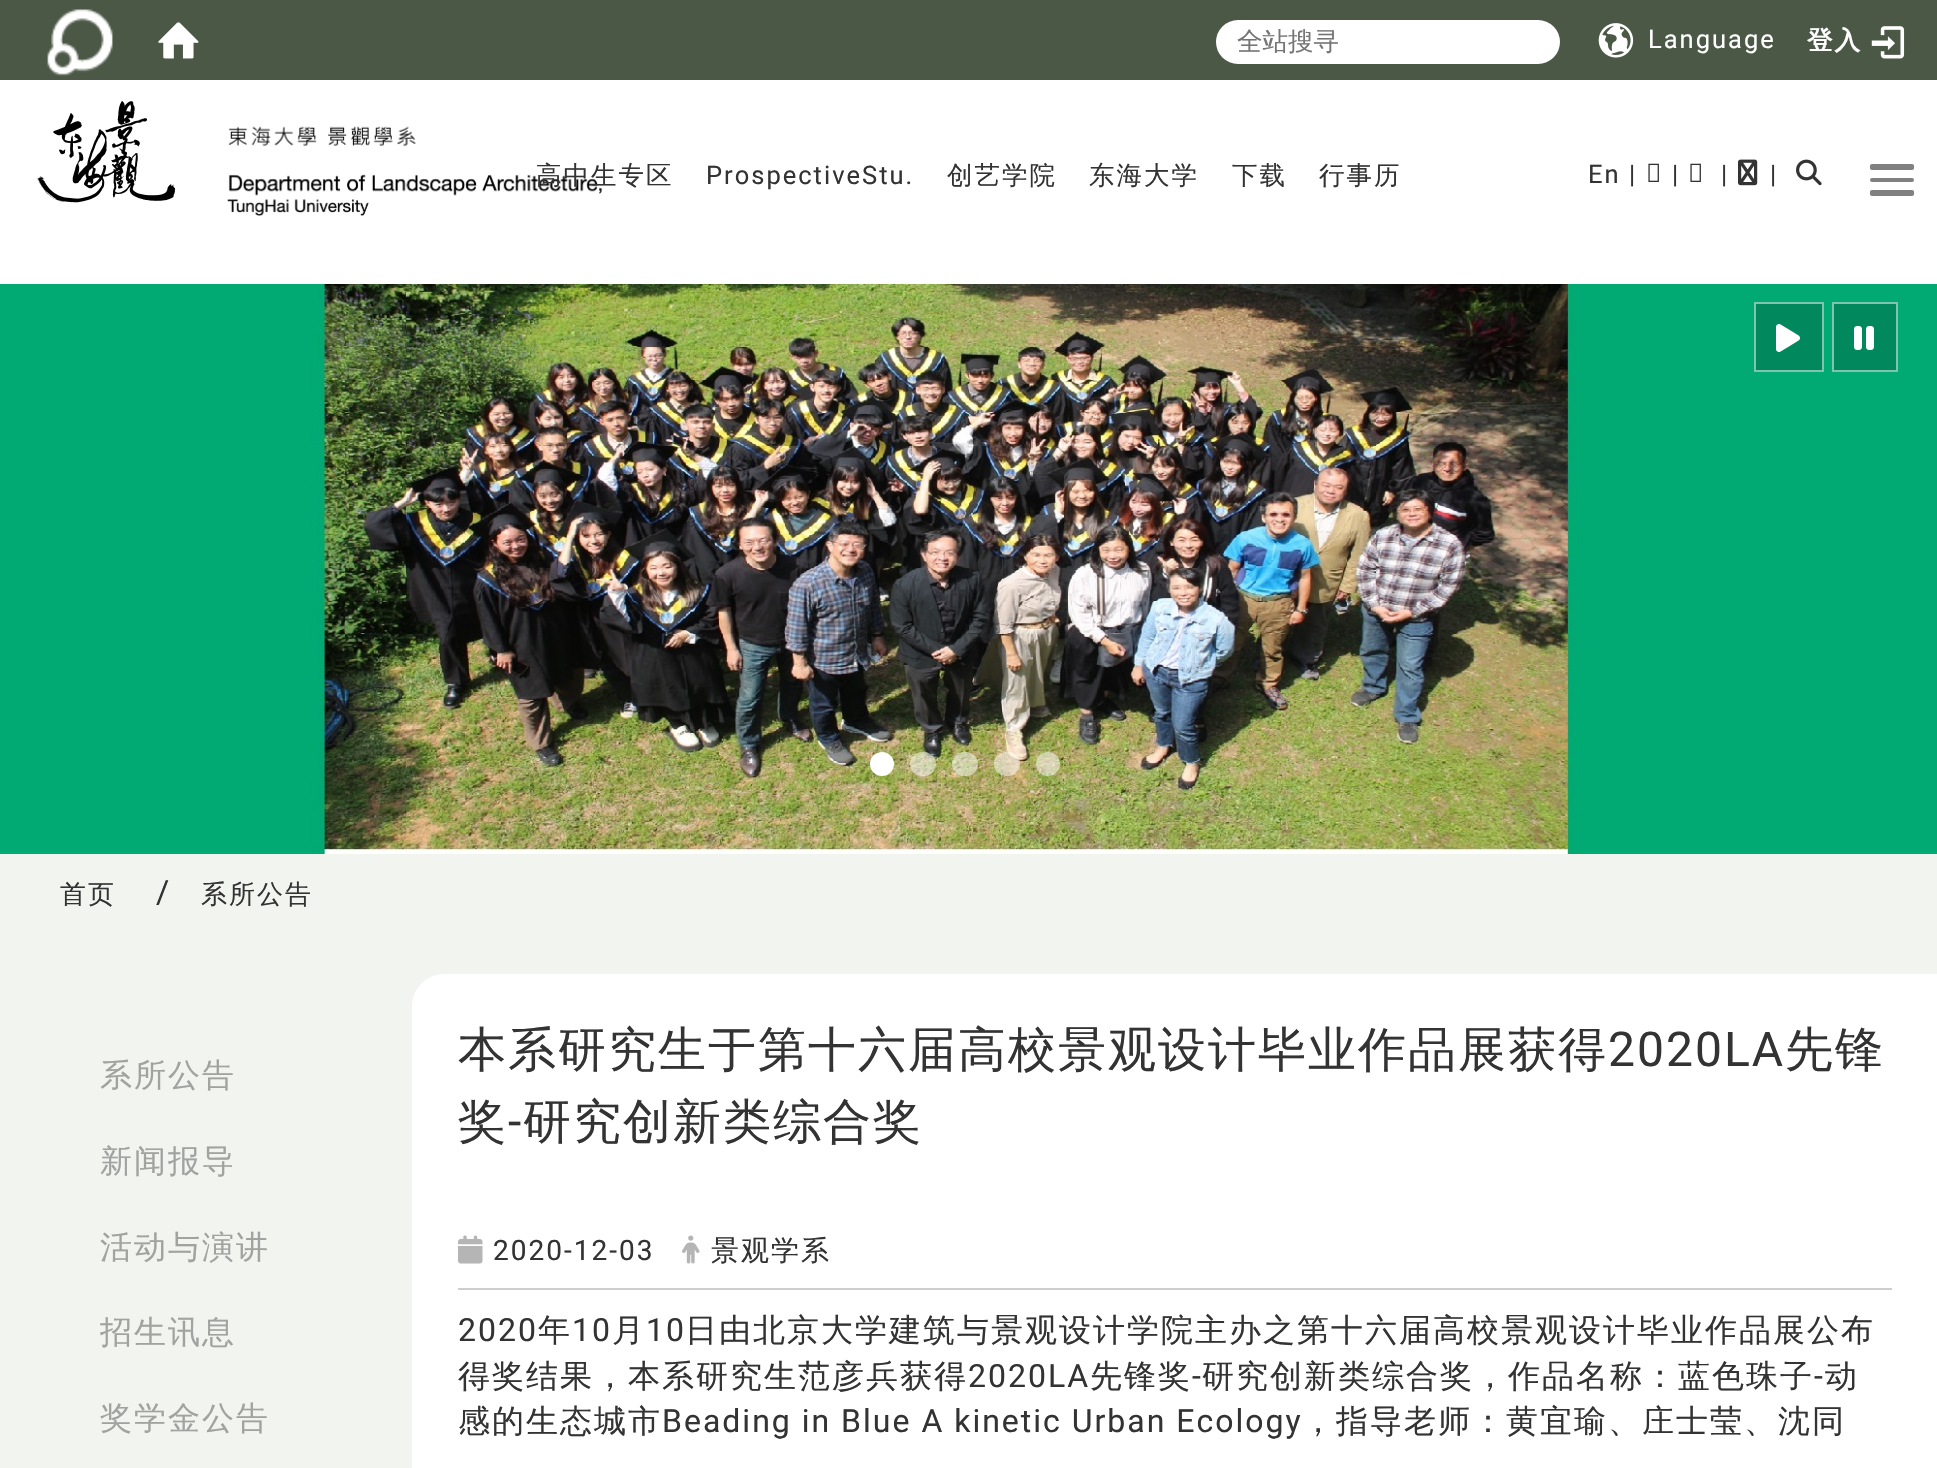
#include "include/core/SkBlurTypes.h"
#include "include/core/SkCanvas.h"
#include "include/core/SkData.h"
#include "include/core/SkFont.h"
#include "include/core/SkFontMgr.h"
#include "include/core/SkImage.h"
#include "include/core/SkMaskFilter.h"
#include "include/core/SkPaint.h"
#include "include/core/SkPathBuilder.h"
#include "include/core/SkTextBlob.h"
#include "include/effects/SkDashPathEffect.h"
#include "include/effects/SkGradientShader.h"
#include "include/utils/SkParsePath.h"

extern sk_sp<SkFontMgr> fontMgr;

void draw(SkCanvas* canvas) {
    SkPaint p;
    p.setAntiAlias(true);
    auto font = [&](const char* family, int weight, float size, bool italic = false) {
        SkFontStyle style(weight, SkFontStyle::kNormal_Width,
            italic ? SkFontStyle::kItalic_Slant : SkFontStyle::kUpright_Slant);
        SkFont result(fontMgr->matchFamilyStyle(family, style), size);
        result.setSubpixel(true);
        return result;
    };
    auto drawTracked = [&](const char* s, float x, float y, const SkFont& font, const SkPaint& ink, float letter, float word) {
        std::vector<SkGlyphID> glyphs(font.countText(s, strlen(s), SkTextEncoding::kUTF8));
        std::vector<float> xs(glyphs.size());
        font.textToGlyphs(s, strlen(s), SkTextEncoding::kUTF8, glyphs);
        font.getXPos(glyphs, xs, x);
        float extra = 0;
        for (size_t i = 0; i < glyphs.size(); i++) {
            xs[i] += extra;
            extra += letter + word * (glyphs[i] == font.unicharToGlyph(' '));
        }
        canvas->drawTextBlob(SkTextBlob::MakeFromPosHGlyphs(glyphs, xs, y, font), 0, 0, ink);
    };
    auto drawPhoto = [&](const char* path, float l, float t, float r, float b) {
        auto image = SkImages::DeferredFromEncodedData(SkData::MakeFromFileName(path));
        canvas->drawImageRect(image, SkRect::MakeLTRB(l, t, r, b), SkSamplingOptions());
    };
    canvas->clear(0xFFFFFFFF);
    p.setColor(0xFF4B5846);
    canvas->drawRect(SkRect::MakeLTRB(0, 0, 1937, 80), p);
    drawPhoto("media/1.png", 47, 9, 113, 76);
    drawPhoto("media/2.png", 158, 22, 199, 59);
    p.setColor(0xFFFFFFFF);
    canvas->drawRoundRect(SkRect::MakeLTRB(1216, 20, 1560, 64), 22, 22, p);
    auto font1 = font("WenQuanYi Zen Hei", 500, 25.5f);
    p.setColor(0xFF757575);
    canvas->drawString("全站搜寻", 1237, 50, font1, p);
    drawPhoto("media/3.png", 1598, 23, 1634, 58);
    auto font2 = font("Roboto", 400, 25.5f);
    p.setColor(0xFFFFFFFF);
    drawTracked("Language", 1648, 48, font2, p, 2, 0);
    auto font3 = font("WenQuanYi Zen Hei", 700, 25.5f);
    drawTracked("登入", 1807, 49, font3, p, 2, 0);
    drawPhoto("media/4.png", 1871, 26, 1905, 59);
    drawPhoto("media/5.png", 37, 101, 176, 203);
    drawPhoto("media/6.png", 227, 126, 603, 216);
    p.setColor(0xFF808080);
    canvas->drawRoundRect(SkRect::MakeLTRB(1870, 164, 1914, 170), 2, 2, p);
    canvas->drawRoundRect(SkRect::MakeLTRB(1870, 178, 1914, 182), 2, 2, p);
    canvas->drawRoundRect(SkRect::MakeLTRB(1870, 190, 1914, 196), 2, 2, p);
    p.setColor(0xFF333333);
    drawTracked("高中生专区", 536, 184, font1, p, 2, 0);
    drawTracked("ProspectiveStu.", 706, 184, font2, p, 2, 0);
    {
        const struct { const char* s; float x, y; } items[] = {
            {"创艺学院", 947, 184},
            {"东海大学", 1089, 184},
            {"下载", 1232, 184},
            {"行事历", 1319, 184},
        };
        for (auto [s, x, y] : items) {
            drawTracked(s, x, y, font1, p, 2, 0);
        }
    }
    drawTracked("En |", 1588, 183, font2, p, 2, 0);
    drawPhoto("media/7.png", 1648, 163, 1659, 182);
    drawTracked("|", 1672, 183, font2, p, 2, 0);
    drawPhoto("media/7.png", 1690, 163, 1701, 182);
    drawTracked("|", 1721, 183, font2, p, 2, 0);
    drawPhoto("media/8.png", 1738, 159, 1758, 186);
    drawTracked("|", 1770, 183, font2, p, 2, 0);
    drawPhoto("media/9.png", 1796, 159, 1822, 186);
    drawPhoto("media/10.png", 0, 284, 1937, 854);
    p.setColor(0xFF01885C);
    canvas->drawRect(SkRect::MakeLTRB(1755, 303, 1823, 371), p);
    p.setStyle(SkPaint::kStroke_Style);
    p.setStrokeWidth(2);
    p.setColor(0xFF80C4AE);
    canvas->drawRect(SkRect::MakeLTRB(1755, 303, 1823, 371), p);
    drawPhoto("media/11.png", 1776, 324, 1800, 352);
    p.setStyle(SkPaint::kFill_Style);
    p.setColor(0xFF01885C);
    canvas->drawRect(SkRect::MakeLTRB(1833, 303, 1897, 371), p);
    p.setStyle(SkPaint::kStroke_Style);
    p.setColor(0xFF80C4AE);
    canvas->drawRect(SkRect::MakeLTRB(1833, 303, 1897, 371), p);
    drawPhoto("media/12.png", 1854, 326, 1874, 350);
    p.setStyle(SkPaint::kFill_Style);
    p.setColor(0xFFFFFFFF);
    canvas->drawCircle(882, 764, 12, p);
    p.setColor(0x80FFFFFF);
    canvas->drawRoundRect(SkRect::MakeLTRB(910, 752, 936, 776), 12, 12, p);
    canvas->drawRoundRect(SkRect::MakeLTRB(952, 752, 978, 776), 12, 12, p);
    canvas->drawRoundRect(SkRect::MakeLTRB(994, 752, 1020, 776), 12, 12, p);
    canvas->drawCircle(1048, 764, 12, p);
    p.setColor(0xFFF1F4EF);
    canvas->drawRect(SkRect::MakeLTRB(0, 854, 1937, 1468), p);
    auto font4 = font("WenQuanYi Zen Hei", 500, 26);
    p.setColor(0xFF333333);
    drawTracked("首页", 60, 903, font4, p, 2, 0);
    auto font5 = font("Roboto", 400, 32);
    drawTracked("/", 156, 903, font5, p, 2, 0);
    drawTracked("系所公告", 201, 903, font4, p, 2, 0);
    auto font6 = font("WenQuanYi Zen Hei", 500, 32);
    p.setColor(0xFFA1A3A0);
    {
        const struct { const char* s; float x, y; } items[] = {
            {"系所公告", 100, 1086},
            {"新闻报导", 100, 1172},
            {"活动与演讲", 100, 1258},
            {"招生讯息", 100, 1343},
            {"奖学金公告", 100, 1429},
        };
        for (auto [s, x, y] : items) {
            drawTracked(s, x, y, font6, p, 2, 0);
        }
    }
    p.setColor(0xFFFFFFFF);
    canvas->drawPath(SkPathBuilder().moveTo(444, 974).lineTo(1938, 974).lineTo(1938, 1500).lineTo(444, 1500).cubicTo(426.5f, 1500, 412, 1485.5f, 412, 1468).lineTo(412, 1006).cubicTo(412, 988.5f, 426.5f, 974, 444, 974).close().detach(), p);
    auto font7 = font("WenQuanYi Zen Hei", 500, 48);
    p.setColor(0xFF333333);
    drawTracked("本系研究生于第十六届高校景观设计毕业作品展获得", 458, 1066, font7, p, 2, 0);
    auto font8 = font("Roboto", 400, 48);
    drawTracked("2020LA", 1608, 1066, font8, p, 2, 0);
    drawTracked("先锋", 1785, 1066, font7, p, 2, 0);
    drawTracked("奖", 458, 1138, font7, p, 2, 0);
    drawTracked("-", 508, 1138, font8, p, 2, 0);
    drawTracked("研究创新类综合奖", 523, 1138, font7, p, 2, 0);
    p.setColor(0xFFCECECE);
    canvas->drawRect(SkRect::MakeLTRB(458, 1288, 1892, 1290), p);
    drawPhoto("media/13.png", 458, 1235, 483, 1264);
    auto font9 = font("Roboto", 400, 28);
    p.setColor(0xFF333333);
    drawTracked("2020-12-03", 493, 1260, font9, p, 2, 0);
    drawPhoto("media/14.png", 682, 1235, 700, 1264);
    auto font10 = font("WenQuanYi Zen Hei", 500, 28);
    drawTracked("景观学系", 711, 1260, font10, p, 2, 0);
    drawTracked("2020", 458, 1341, font5, p, 2, 0);
    drawTracked("年", 538, 1341, font6, p, 2, 0);
    drawTracked("10", 572, 1341, font5, p, 2, 0);
    drawTracked("月", 612, 1341, font6, p, 2, 0);
    drawTracked("10", 646, 1341, font5, p, 2, 0);
    drawTracked("日由北京大学建筑与景观设计学院主办之第十六届高校景观设计毕业作品展公布", 685, 1341, font6, p, 2, 0);
    drawTracked("得奖结果，本系研究生范彦兵获得", 458, 1387, font6, p, 2, 0);
    drawTracked("2020LA", 968, 1387, font5, p, 2, 0);
    drawTracked("先锋奖", 1090, 1387, font6, p, 2, 0);
    drawTracked("-", 1192, 1387, font5, p, 2, 0);
    drawTracked("研究创新类综合奖，作品名称：蓝色珠子", 1202, 1387, font6, p, 2, 0);
    drawTracked("-", 1814, 1387, font5, p, 2, 0);
    drawTracked("动", 1825, 1387, font6, p, 2, 0);
    drawTracked("感的生态城市", 458, 1432, font6, p, 2, 0);
    drawTracked("Beading in Blue A kinetic Urban Ecology", 662, 1432, font5, p, 2, 0);
    drawTracked("，指导老师：黄宜瑜、庄士莹、沈同", 1302, 1432, font6, p, 2, 0);
}
